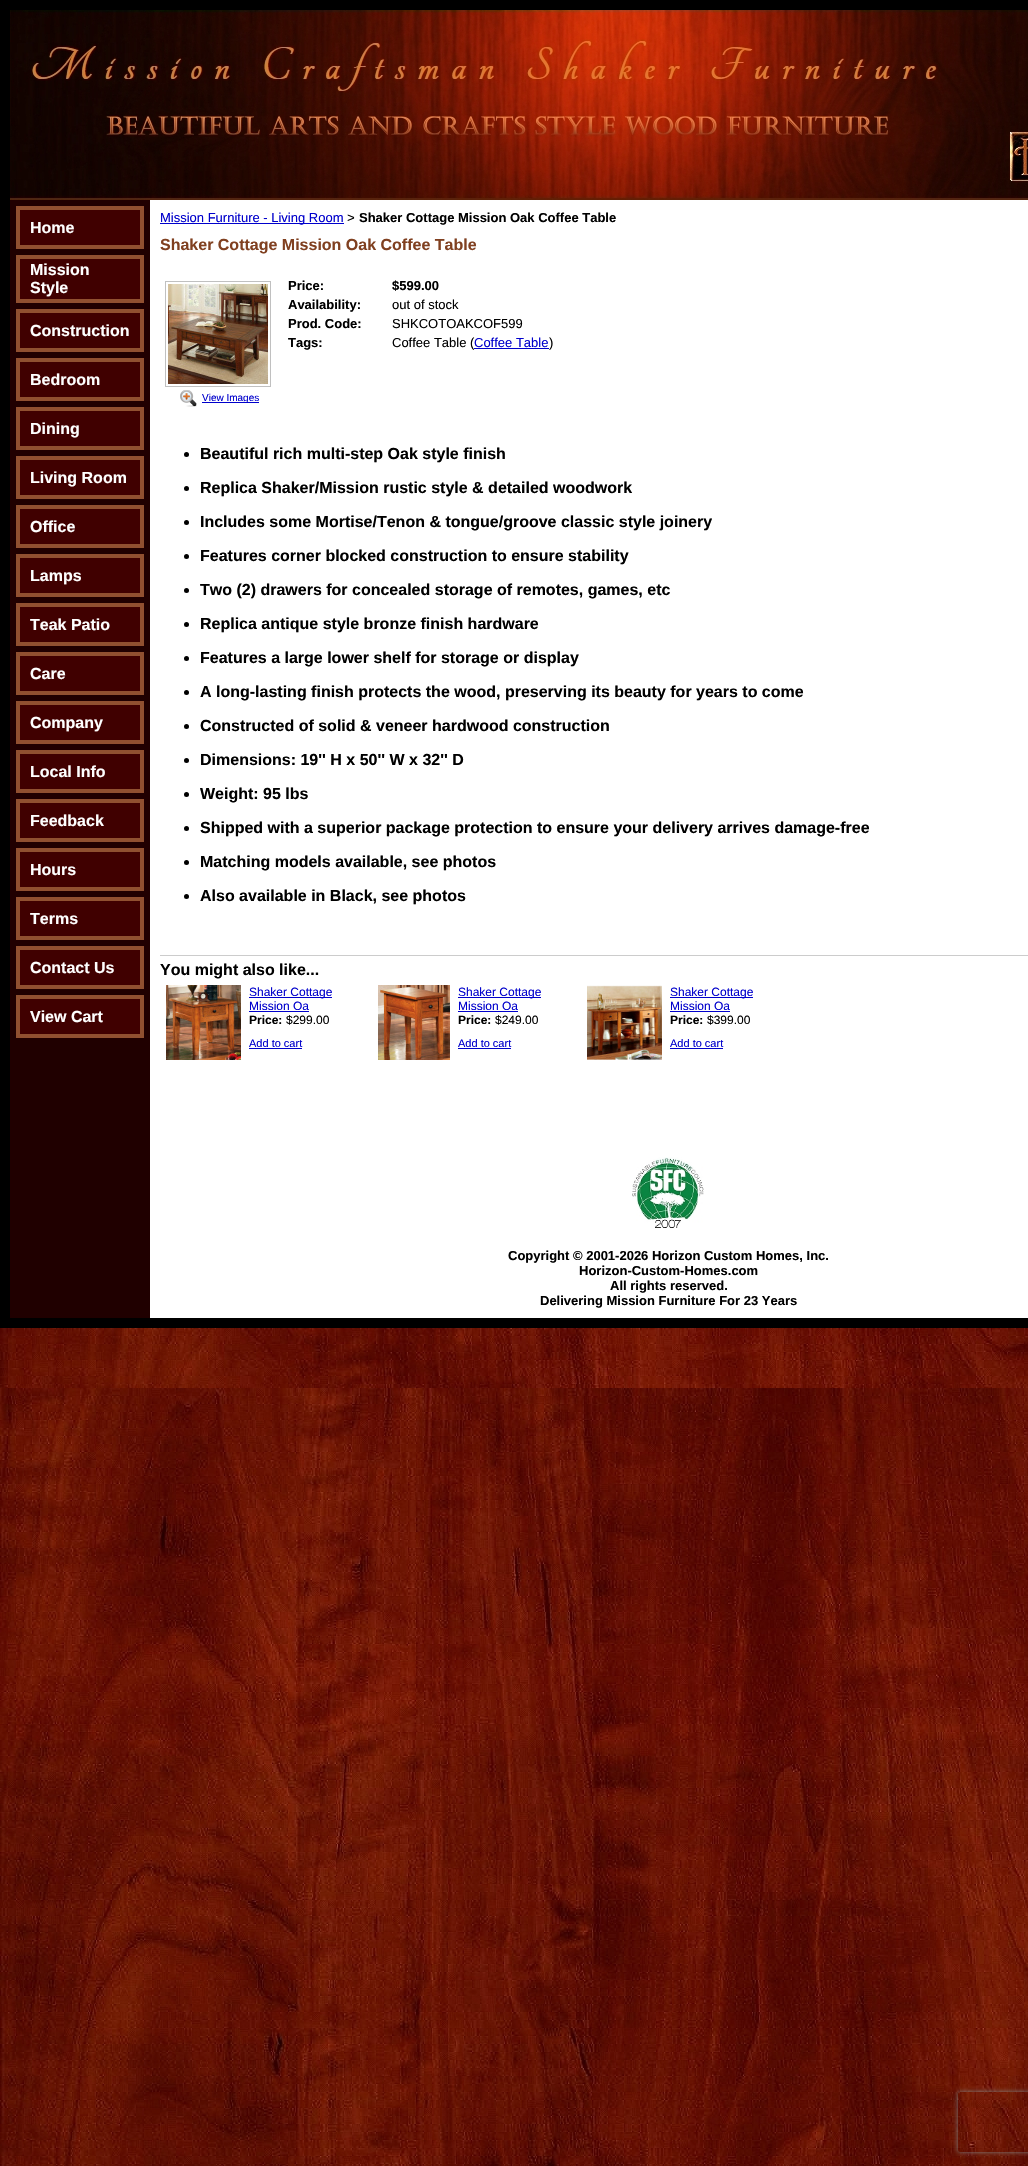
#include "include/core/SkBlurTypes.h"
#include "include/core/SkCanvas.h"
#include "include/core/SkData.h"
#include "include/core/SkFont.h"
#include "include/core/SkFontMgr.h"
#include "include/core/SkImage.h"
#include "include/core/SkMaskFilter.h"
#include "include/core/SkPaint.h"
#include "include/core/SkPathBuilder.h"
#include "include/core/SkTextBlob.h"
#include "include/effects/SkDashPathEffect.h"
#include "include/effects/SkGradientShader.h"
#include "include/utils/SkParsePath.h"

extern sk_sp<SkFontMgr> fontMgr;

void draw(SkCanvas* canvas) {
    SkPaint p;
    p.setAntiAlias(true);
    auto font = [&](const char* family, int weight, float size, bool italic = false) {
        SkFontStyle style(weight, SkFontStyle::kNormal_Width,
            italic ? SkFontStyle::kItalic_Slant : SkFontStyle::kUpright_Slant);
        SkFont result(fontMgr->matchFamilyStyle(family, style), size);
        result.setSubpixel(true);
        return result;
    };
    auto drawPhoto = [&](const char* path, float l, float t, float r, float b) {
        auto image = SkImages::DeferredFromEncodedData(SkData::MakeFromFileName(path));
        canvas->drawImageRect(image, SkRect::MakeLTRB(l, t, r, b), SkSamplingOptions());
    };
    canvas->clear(0xFFFFFFFF);
    drawPhoto("media/1.png", 0, 1328, 1028, 2166);
    p.setColor(0xFF000000);
    canvas->drawRect(SkRect::MakeLTRB(0, 0, 1028, 1328), p);
    drawPhoto("media/2.png", 10, 10, 1028, 200);
    {
        const struct { float l, t, r, b; SkColor color; } items[] = {
            {10, 200, 150, 1318, 0xFF200000},
            {16, 206, 144, 249, 0xFF905030},
            {20, 210, 140, 245, 0xFF400000},
        };
        for (auto [l, t, r, b, color] : items) {
            p.setColor(color);
            canvas->drawRect(SkRect::MakeLTRB(l, t, r, b), p);
        }
    }
    auto font1 = font("Liberation Sans", 700, 16);
    p.setColor(0xFFFFFFFF);
    canvas->drawString("Home", 30, 233, font1, p);
    p.setColor(0xFF905030);
    canvas->drawRect(SkRect::MakeLTRB(16, 255, 144, 303), p);
    p.setColor(0xFF400000);
    canvas->drawRect(SkRect::MakeLTRB(20, 259, 140, 299), p);
    p.setColor(0xFFFFFFFF);
    canvas->drawString("Mission", 30, 275, font1, p);
    canvas->drawString("Style", 30, 293, font1, p);
    p.setColor(0xFF905030);
    canvas->drawRect(SkRect::MakeLTRB(16, 309, 144, 352), p);
    p.setColor(0xFF400000);
    canvas->drawRect(SkRect::MakeLTRB(20, 313, 140, 348), p);
    p.setColor(0xFFFFFFFF);
    canvas->drawString("Construction", 30, 336, font1, p);
    p.setColor(0xFF905030);
    canvas->drawRect(SkRect::MakeLTRB(16, 358, 144, 401), p);
    p.setColor(0xFF400000);
    canvas->drawRect(SkRect::MakeLTRB(20, 362, 140, 397), p);
    p.setColor(0xFFFFFFFF);
    canvas->drawString("Bedroom", 30, 385, font1, p);
    p.setColor(0xFF905030);
    canvas->drawRect(SkRect::MakeLTRB(16, 407, 144, 450), p);
    p.setColor(0xFF400000);
    canvas->drawRect(SkRect::MakeLTRB(20, 411, 140, 446), p);
    p.setColor(0xFFFFFFFF);
    canvas->drawString("Dining", 30, 434, font1, p);
    p.setColor(0xFF905030);
    canvas->drawRect(SkRect::MakeLTRB(16, 456, 144, 499), p);
    p.setColor(0xFF400000);
    canvas->drawRect(SkRect::MakeLTRB(20, 460, 140, 495), p);
    p.setColor(0xFFFFFFFF);
    canvas->drawString("Living Room", 30, 483, font1, p);
    p.setColor(0xFF905030);
    canvas->drawRect(SkRect::MakeLTRB(16, 505, 144, 548), p);
    p.setColor(0xFF400000);
    canvas->drawRect(SkRect::MakeLTRB(20, 509, 140, 544), p);
    p.setColor(0xFFFFFFFF);
    canvas->drawString("Office", 30, 532, font1, p);
    p.setColor(0xFF905030);
    canvas->drawRect(SkRect::MakeLTRB(16, 554, 144, 597), p);
    p.setColor(0xFF400000);
    canvas->drawRect(SkRect::MakeLTRB(20, 558, 140, 593), p);
    p.setColor(0xFFFFFFFF);
    canvas->drawString("Lamps", 30, 581, font1, p);
    p.setColor(0xFF905030);
    canvas->drawRect(SkRect::MakeLTRB(16, 603, 144, 646), p);
    p.setColor(0xFF400000);
    canvas->drawRect(SkRect::MakeLTRB(20, 607, 140, 642), p);
    p.setColor(0xFFFFFFFF);
    canvas->drawString("Teak Patio", 30, 630, font1, p);
    p.setColor(0xFF905030);
    canvas->drawRect(SkRect::MakeLTRB(16, 652, 144, 695), p);
    p.setColor(0xFF400000);
    canvas->drawRect(SkRect::MakeLTRB(20, 656, 140, 691), p);
    p.setColor(0xFFFFFFFF);
    canvas->drawString("Care", 30, 679, font1, p);
    p.setColor(0xFF905030);
    canvas->drawRect(SkRect::MakeLTRB(16, 701, 144, 744), p);
    p.setColor(0xFF400000);
    canvas->drawRect(SkRect::MakeLTRB(20, 705, 140, 740), p);
    p.setColor(0xFFFFFFFF);
    canvas->drawString("Company", 30, 728, font1, p);
    p.setColor(0xFF905030);
    canvas->drawRect(SkRect::MakeLTRB(16, 750, 144, 793), p);
    p.setColor(0xFF400000);
    canvas->drawRect(SkRect::MakeLTRB(20, 754, 140, 789), p);
    p.setColor(0xFFFFFFFF);
    canvas->drawString("Local Info", 30, 777, font1, p);
    p.setColor(0xFF905030);
    canvas->drawRect(SkRect::MakeLTRB(16, 799, 144, 842), p);
    p.setColor(0xFF400000);
    canvas->drawRect(SkRect::MakeLTRB(20, 803, 140, 838), p);
    p.setColor(0xFFFFFFFF);
    canvas->drawString("Feedback", 30, 826, font1, p);
    p.setColor(0xFF905030);
    canvas->drawRect(SkRect::MakeLTRB(16, 848, 144, 891), p);
    p.setColor(0xFF400000);
    canvas->drawRect(SkRect::MakeLTRB(20, 852, 140, 887), p);
    p.setColor(0xFFFFFFFF);
    canvas->drawString("Hours", 30, 875, font1, p);
    p.setColor(0xFF905030);
    canvas->drawRect(SkRect::MakeLTRB(16, 897, 144, 940), p);
    p.setColor(0xFF400000);
    canvas->drawRect(SkRect::MakeLTRB(20, 901, 140, 936), p);
    p.setColor(0xFFFFFFFF);
    canvas->drawString("Terms", 30, 924, font1, p);
    p.setColor(0xFF905030);
    canvas->drawRect(SkRect::MakeLTRB(16, 946, 144, 989), p);
    p.setColor(0xFF400000);
    canvas->drawRect(SkRect::MakeLTRB(20, 950, 140, 985), p);
    p.setColor(0xFFFFFFFF);
    canvas->drawString("Contact Us", 30, 973, font1, p);
    p.setColor(0xFF905030);
    canvas->drawRect(SkRect::MakeLTRB(16, 995, 144, 1038), p);
    p.setColor(0xFF400000);
    canvas->drawRect(SkRect::MakeLTRB(20, 999, 140, 1034), p);
    p.setColor(0xFFFFFFFF);
    canvas->drawString("View Cart", 30, 1022, font1, p);
    canvas->drawRect(SkRect::MakeLTRB(150, 200, 1028, 1318), p);
    p.setColor(0xFF0000CC);
    canvas->drawRect(SkRect::MakeLTRB(160, 223, 344, 224), p);
    auto font2 = font("Liberation Sans", 400, 13);
    canvas->drawString("Mission Furniture - Living Room", 160, 222, font2, p);
    auto font3 = font("Liberation Mono", 400, 13);
    p.setColor(0xFF000000);
    canvas->drawString(">", 347, 222, font3, p);
    auto font4 = font("Liberation Sans", 700, 13);
    canvas->drawString("Shaker Cottage Mission Oak Coffee Table", 359, 222, font4, p);
    p.setColor(0xFF804020);
    canvas->drawString("Shaker Cottage Mission Oak Coffee Table", 160, 250, font1, p);
    p.setColor(0xFF000000);
    {
        const struct { const char* s; float x, y; } items[] = {
            {"Price:", 288, 290},
            {"$599.00", 392, 290},
            {"Availability:", 288, 309},
        };
        for (auto [s, x, y] : items) {
            canvas->drawString(s, x, y, font4, p);
        }
    }
    canvas->drawString("out of stock", 392, 309, font2, p);
    canvas->drawString("Prod. Code:", 288, 328, font4, p);
    canvas->drawString("SHKCOTOAKCOF599", 392, 328, font2, p);
    canvas->drawString("Tags:", 288, 347, font4, p);
    canvas->drawString("Coffee Table (", 392, 347, font2, p);
    p.setColor(0xFF0000CC);
    canvas->drawString("Coffee Table", 474, 347, font2, p);
    canvas->drawRect(SkRect::MakeLTRB(474, 348, 549, 349), p);
    p.setColor(0xFF000000);
    canvas->drawString(")", 549, 347, font2, p);
    p.setStyle(SkPaint::kStroke_Style);
    p.setStrokeWidth(1);
    p.setColor(0xFFC0C0C0);
    canvas->drawRect(SkRect::MakeLTRB(165.5f, 281.5f, 270.5f, 386.5f), p);
    drawPhoto("media/3.png", 168, 284, 268, 384);
    drawPhoto("media/4.png", 180, 390, 197, 407);
    p.setStyle(SkPaint::kFill_Style);
    p.setColor(0xFF0000CC);
    canvas->drawRect(SkRect::MakeLTRB(202, 402, 259, 403), p);
    auto font5 = font("Liberation Sans", 400, 10);
    canvas->drawString("View Images", 202, 401, font5, p);
    p.setColor(0xFF000000);
    canvas->drawCircle(186.5f, 454.5f, 2.5f, p);
    canvas->drawString("Beautiful rich multi-step Oak style finish", 200, 459, font1, p);
    canvas->drawCircle(186.5f, 488.5f, 2.5f, p);
    canvas->drawString("Replica Shaker/Mission rustic style & detailed woodwork", 200, 493, font1, p);
    canvas->drawCircle(186.5f, 522.5f, 2.5f, p);
    canvas->drawString("Includes some Mortise/Tenon & tongue/groove classic style joinery", 200, 527, font1, p);
    canvas->drawCircle(186.5f, 556.5f, 2.5f, p);
    canvas->drawString("Features corner blocked construction to ensure stability", 200, 561, font1, p);
    canvas->drawCircle(186.5f, 590.5f, 2.5f, p);
    canvas->drawString("Two (2) drawers for concealed storage of remotes, games, etc", 200, 595, font1, p);
    canvas->drawCircle(186.5f, 624.5f, 2.5f, p);
    canvas->drawString("Replica antique style bronze finish hardware", 200, 629, font1, p);
    canvas->drawCircle(186.5f, 658.5f, 2.5f, p);
    canvas->drawString("Features a large lower shelf for storage or display", 200, 663, font1, p);
    canvas->drawCircle(186.5f, 692.5f, 2.5f, p);
    canvas->drawString("A long-lasting finish protects the wood, preserving its beauty for years to come", 200, 697, font1, p);
    canvas->drawCircle(186.5f, 726.5f, 2.5f, p);
    canvas->drawString("Constructed of solid & veneer hardwood construction", 200, 731, font1, p);
    canvas->drawCircle(186.5f, 760.5f, 2.5f, p);
    canvas->drawString("Dimensions: 19'' H x 50'' W x 32'' D", 200, 765, font1, p);
    canvas->drawCircle(186.5f, 794.5f, 2.5f, p);
    canvas->drawString("Weight: 95 lbs", 200, 799, font1, p);
    canvas->drawCircle(186.5f, 828.5f, 2.5f, p);
    canvas->drawString("Shipped with a superior package protection to ensure your delivery arrives damage-free", 200, 833, font1, p);
    canvas->drawCircle(186.5f, 862.5f, 2.5f, p);
    canvas->drawString("Matching models available, see photos", 200, 867, font1, p);
    canvas->drawCircle(186.5f, 896.5f, 2.5f, p);
    canvas->drawString("Also available in Black, see photos", 200, 901, font1, p);
    p.setColor(0xFFCCCCCC);
    canvas->drawRect(SkRect::MakeLTRB(160, 955, 1028, 956), p);
    p.setColor(0xFF000000);
    canvas->drawString("You might also like...", 160, 975, font1, p);
    drawPhoto("media/5.png", 166, 985, 241, 1060);
    p.setColor(0xFF0000CC);
    canvas->drawRect(SkRect::MakeLTRB(249, 997, 332, 998), p);
    auto font6 = font("Liberation Sans", 400, 12);
    canvas->drawString("Shaker Cottage", 249, 996, font6, p);
    canvas->drawString("Mission Oa", 249, 1010, font6, p);
    canvas->drawRect(SkRect::MakeLTRB(249, 1011, 309, 1012), p);
    auto font7 = font("Liberation Sans", 700, 12);
    p.setColor(0xFF000000);
    canvas->drawString("Price:", 249, 1024, font7, p);
    canvas->drawString("$299.00", 286, 1024, font6, p);
    auto font8 = font("Liberation Sans", 400, 11);
    p.setColor(0xFF0000CC);
    canvas->drawString("Add to cart", 249, 1047, font8, p);
    canvas->drawRect(SkRect::MakeLTRB(249, 1048, 302, 1049), p);
    drawPhoto("media/6.png", 378, 985, 450, 1060);
    canvas->drawRect(SkRect::MakeLTRB(458, 997, 541, 998), p);
    canvas->drawString("Shaker Cottage", 458, 996, font6, p);
    canvas->drawString("Mission Oa", 458, 1010, font6, p);
    canvas->drawRect(SkRect::MakeLTRB(458, 1011, 518, 1012), p);
    p.setColor(0xFF000000);
    canvas->drawString("Price:", 458, 1024, font7, p);
    canvas->drawString("$249.00", 495, 1024, font6, p);
    p.setColor(0xFF0000CC);
    canvas->drawString("Add to cart", 458, 1047, font8, p);
    canvas->drawRect(SkRect::MakeLTRB(458, 1048, 511, 1049), p);
    drawPhoto("media/7.png", 587, 985, 662, 1060);
    canvas->drawRect(SkRect::MakeLTRB(670, 997, 753, 998), p);
    canvas->drawString("Shaker Cottage", 670, 996, font6, p);
    canvas->drawString("Mission Oa", 670, 1010, font6, p);
    canvas->drawRect(SkRect::MakeLTRB(670, 1011, 730, 1012), p);
    p.setColor(0xFF000000);
    canvas->drawString("Price:", 670, 1024, font7, p);
    canvas->drawString("$399.00", 707, 1024, font6, p);
    p.setColor(0xFF0000CC);
    canvas->drawString("Add to cart", 670, 1047, font8, p);
    canvas->drawRect(SkRect::MakeLTRB(670, 1048, 723, 1049), p);
    drawPhoto("media/8.png", 632, 1157, 704, 1228);
    p.setColor(0xFF000000);
    {
        const struct { const char* s; float x, y; } items[] = {
            {"Copyright © 2001-2026 Horizon Custom Homes, Inc.", 508, 1260},
            {"Horizon-Custom-Homes.com", 579, 1275},
            {"All rights reserved.", 610, 1290},
            {"Delivering Mission Furniture For 23 Years", 540, 1305},
        };
        for (auto [s, x, y] : items) {
            canvas->drawString(s, x, y, font4, p);
        }
    }
    canvas->save();
    canvas->clipPath(SkPathBuilder(SkPathFillType::kEvenOdd).moveTo(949, 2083).lineTo(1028, 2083).lineTo(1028, 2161).lineTo(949, 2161).close().moveTo(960, 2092).lineTo(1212, 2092).cubicTo(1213, 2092, 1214, 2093, 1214, 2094).lineTo(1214, 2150).cubicTo(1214, 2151, 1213, 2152, 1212, 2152).lineTo(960, 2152).cubicTo(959, 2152, 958, 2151, 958, 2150).lineTo(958, 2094).cubicTo(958, 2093, 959, 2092, 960, 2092).close().detach(), true);
    p.setColor(0xFF808080);
    p.setMaskFilter(SkMaskFilter::MakeBlur(kNormal_SkBlurStyle, 2.5f));
    canvas->drawRoundRect(SkRect::MakeLTRB(958, 2092, 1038, 2152), 2, 2, p);
    p.setMaskFilter(nullptr);
    canvas->restore();
}
